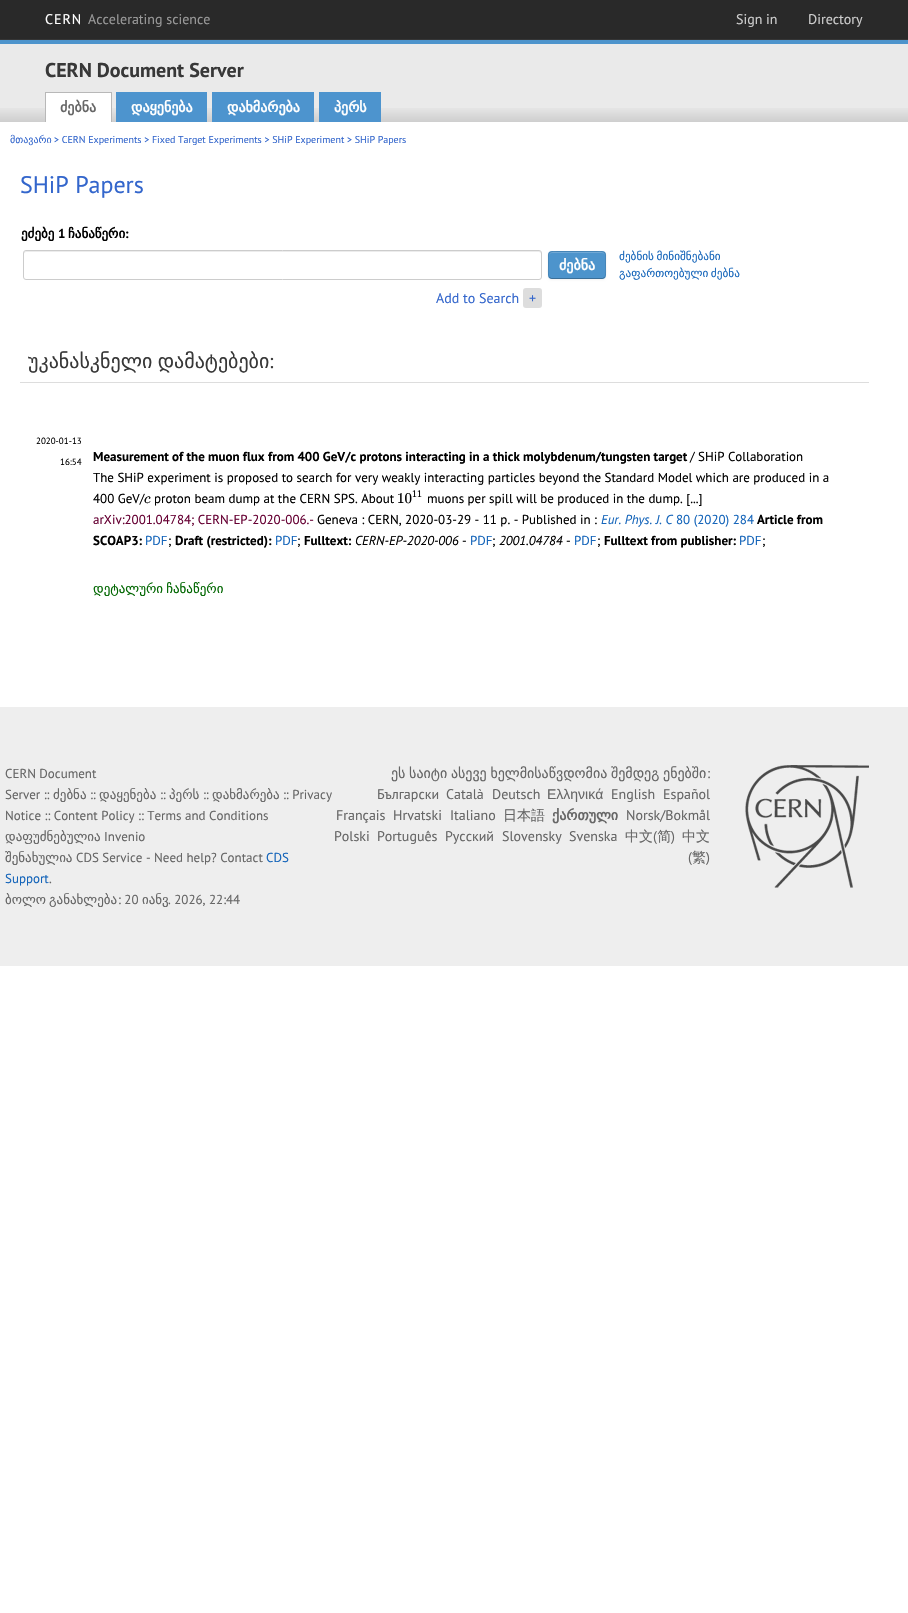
#include "include/core/SkBlurTypes.h"
#include "include/core/SkCanvas.h"
#include "include/core/SkData.h"
#include "include/core/SkFont.h"
#include "include/core/SkFontMgr.h"
#include "include/core/SkImage.h"
#include "include/core/SkMaskFilter.h"
#include "include/core/SkPaint.h"
#include "include/core/SkPathBuilder.h"
#include "include/core/SkTextBlob.h"
#include "include/effects/SkDashPathEffect.h"
#include "include/effects/SkGradientShader.h"
#include "include/utils/SkParsePath.h"

extern sk_sp<SkFontMgr> fontMgr;

void draw(SkCanvas* canvas) {
    SkPaint p;
    p.setAntiAlias(true);
    auto font = [&](const char* family, int weight, float size, bool italic = false) {
        SkFontStyle style(weight, SkFontStyle::kNormal_Width,
            italic ? SkFontStyle::kItalic_Slant : SkFontStyle::kUpright_Slant);
        SkFont result(fontMgr->matchFamilyStyle(family, style), size);
        result.setSubpixel(true);
        return result;
    };
    auto drawTracked = [&](const char* s, float x, float y, const SkFont& font, const SkPaint& ink, float letter, float word) {
        std::vector<SkGlyphID> glyphs(font.countText(s, strlen(s), SkTextEncoding::kUTF8));
        std::vector<float> xs(glyphs.size());
        font.textToGlyphs(s, strlen(s), SkTextEncoding::kUTF8, glyphs);
        font.getXPos(glyphs, xs, x);
        float extra = 0;
        for (size_t i = 0; i < glyphs.size(); i++) {
            xs[i] += extra;
            extra += letter + word * (glyphs[i] == font.unicharToGlyph(' '));
        }
        canvas->drawTextBlob(SkTextBlob::MakeFromPosHGlyphs(glyphs, xs, y, font), 0, 0, ink);
    };
    auto drawPhoto = [&](const char* path, float l, float t, float r, float b) {
        auto image = SkImages::DeferredFromEncodedData(SkData::MakeFromFileName(path));
        canvas->drawImageRect(image, SkRect::MakeLTRB(l, t, r, b), SkSamplingOptions());
    };
    canvas->clear(0xFFFFFFFF);
    p.setColor(0xFF292929);
    canvas->drawRect(SkRect::MakeLTRB(0, 0, 908, 39), p);
    p.setColor(0xFF353535);
    canvas->drawRect(SkRect::MakeLTRB(0, 39, 908, 40), p);
    auto font1 = font("PT Sans", 400, 14);
    p.setColor(0xFFFFFFFF);
    drawTracked("CERN", 45, 24, font1, p, 1, 0);
    p.setColor(0xFF999999);
    canvas->drawString("Accelerating science", 88, 24, font1, p);
    p.setColor(0xFFCCCCCC);
    canvas->drawString("Sign in", 736, 24, font1, p);
    canvas->drawString("Directory", 808, 24, font1, p);
    p.setColor(0xFFEAEAEA);
    canvas->drawRect(SkRect::MakeLTRB(0, 44, 908, 122), p);
    drawPhoto("media/1.png", 0, 108, 908, 122);
    p.setColor(0xFF4D94CC);
    canvas->drawRect(SkRect::MakeLTRB(0, 40, 908, 44), p);
    auto font2 = font("PT Sans", 700, 20);
    p.setColor(0xFF383838);
    canvas->drawString("CERN Document Server", 45, 77, font2, p);
    {
        const struct { float l, t, r, b; SkColor color; } items[] = {
            {46, 93, 111, 122, 0xFFFFFFFF},
            {45, 92, 112, 93, 0xFFB8B8B8},
            {111, 92, 112, 122, 0xFFB8B8B8},
            {45, 92, 46, 122, 0xFFB8B8B8},
        };
        for (auto [l, t, r, b, color] : items) {
            p.setColor(color);
            canvas->drawRect(SkRect::MakeLTRB(l, t, r, b), p);
        }
    }
    auto font3 = font("DejaVu Sans", 700, 14);
    p.setColor(0xFF666666);
    canvas->drawString("ძებნა", 60, 112, font3, p);
    p.setColor(0xFF4D94CE);
    canvas->drawRect(SkRect::MakeLTRB(116, 92, 207, 122), p);
    p.setColor(0xFFFFFFFF);
    canvas->drawString("დაყენება", 131, 112, font3, p);
    p.setColor(0xFF4D94CE);
    canvas->drawRect(SkRect::MakeLTRB(212, 92, 314, 122), p);
    p.setColor(0xFFFFFFFF);
    canvas->drawString("დახმარება", 227, 112, font3, p);
    p.setColor(0xFF4D94CE);
    canvas->drawRect(SkRect::MakeLTRB(319, 92, 381, 122), p);
    p.setColor(0xFFFFFFFF);
    canvas->drawString("პერს", 334, 112, font3, p);
    auto font4 = font("DejaVu Sans", 400, 10);
    p.setColor(0xFF3366CC);
    canvas->drawString("მთავარი", 10, 143, font4, p);
    auto font5 = font("PT Sans", 400, 10);
    canvas->drawString("> CERN Experiments > Fixed Target Experiments > SHiP Experiment > SHiP Papers", 54, 143, font5, p);
    auto font6 = font("PT Sans", 400, 24);
    canvas->drawString("SHiP Papers", 20, 193, font6, p);
    auto font7 = font("DejaVu Sans", 700, 13);
    p.setColor(0xFF000000);
    canvas->drawString("ეძებე", 21, 238, font7, p);
    auto font8 = font("PT Sans", 700, 13);
    canvas->drawString("1", 58, 238, font8, p);
    canvas->drawString("ჩანაწერი", 68, 238, font7, p);
    canvas->drawString(":", 125, 238, font8, p);
    p.setColor(0xFFECECEC);
    canvas->drawPath(SkPathBuilder().moveTo(26, 252).lineTo(539, 252).cubicTo(540, 252, 541, 253, 541, 254).cubicTo(541, 253, 541, 251, 539, 251).lineTo(26, 251).lineTo(24, 252).lineTo(24, 254).cubicTo(24, 253, 25, 252, 26, 252).close().detach(), p);
    p.setStyle(SkPaint::kStroke_Style);
    p.setStrokeWidth(1);
    p.setColor(0xFFCCCCCC);
    canvas->drawRoundRect(SkRect::MakeLTRB(23.5f, 250.5f, 541.5f, 279.5f), 2.5f, 2.5f, p);
    p.setStyle(SkPaint::kFill_Style);
    p.setColor(0x0D000000);
    p.setMaskFilter(SkMaskFilter::MakeBlur(kNormal_SkBlurStyle, 1));
    canvas->drawRoundRect(SkRect::MakeLTRB(548, 252, 606, 280), 4, 4, p);
    p.setMaskFilter(nullptr);
    p.setColor(0xFF4D94CC);
    canvas->drawRoundRect(SkRect::MakeLTRB(548, 251, 606, 279), 4, 4, p);
    p.setColor(0xFF71A9D6);
    canvas->drawPath(SkPathBuilder().moveTo(552, 253).lineTo(602, 253).cubicTo(604, 253, 605, 254, 605, 256).cubicTo(605, 250, 598, 252, 594, 252).lineTo(560, 252).cubicTo(556, 252, 549, 250, 549, 256).cubicTo(549, 254, 550, 253, 552, 253).close().detach(), p);
    p.setStyle(SkPaint::kStroke_Style);
    p.setColor(0x40000000);
    canvas->drawPath(SkPathBuilder().moveTo(604.5f, 277.5f).lineTo(602.5f, 278.5f).lineTo(551.5f, 278.5f).lineTo(549.5f, 277.5f).detach(), p);
    p.setColor(0x1A000000);
    canvas->drawPath(SkPathBuilder().moveTo(549.5f, 277.5f).cubicTo(547.5f, 275, 548.5f, 267.5f, 548.5f, 265).cubicTo(548.5f, 251, 546, 251.5f, 560.5f, 251.5f).lineTo(593.5f, 251.5f).cubicTo(608, 251.5f, 605.5f, 251, 605.5f, 265).cubicTo(605.5f, 267.5f, 606.5f, 275, 604.5f, 277.5f).detach(), p);
    p.setStyle(SkPaint::kFill_Style);
    p.setColor(0xFFFFFFFF);
    canvas->drawString("ძებნა", 559, 270, font3, p);
    auto font9 = font("DejaVu Sans", 400, 11.25f);
    p.setColor(0xFF1565BA);
    drawTracked("ძებნის მინიშნებანი", 619, 260, font9, p, 0, -1);
    drawTracked("გაფართოებული ძებნა", 619, 277, font9, p, 0, -1);
    p.setColor(0xFF3366CC);
    canvas->drawString("Add to Search", 436, 303, font1, p);
    p.setColor(0xFFDDDDDD);
    canvas->drawRoundRect(SkRect::MakeLTRB(523, 288, 542, 308), 3, 3, p);
    p.setColor(0xFF3366CC);
    canvas->drawString("+", 529, 303, font1, p);
    p.setColor(0xFFDDDDDD);
    canvas->drawRect(SkRect::MakeLTRB(20, 382, 869, 383), p);
    auto font10 = font("DejaVu Sans", 400, 20);
    p.setColor(0xFF383838);
    drawTracked("უკანასკნელი დამატებები", 28, 368, font10, p, 0, -1);
    auto font11 = font("PT Sans", 400, 20);
    canvas->drawString(":", 269, 368, font11, p);
    auto font12 = font("PT Sans", 400, 9);
    p.setColor(0xFF000000);
    canvas->drawString("2020-01-13", 36, 444, font12, p);
    canvas->drawString("16:54", 60, 465, font12, p);
    canvas->drawString("Measurement of the muon flux from 400 GeV/c protons interacting in a thick molybdenum/tungsten target", 93, 461, font8, p);
    auto font13 = font("PT Sans", 400, 13);
    {
        const struct { const char* s; float x, y; } items[] = {
            {"/ SHiP Collaboration", 690, 461},
            {"The SHiP experiment is proposed to search for very weakly interacting particles beyond the Standard Model which are produced in a", 93, 482},
            {"400 GeV/", 93, 503},
        };
        for (auto [s, x, y] : items) {
            canvas->drawString(s, x, y, font13, p);
        }
    }
    auto font14 = font("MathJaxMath", 400, 15, true);
    canvas->drawString("c", 144, 503, font14, p);
    canvas->drawString("proton beam dump at the CERN SPS. About", 154, 503, font13, p);
    auto font15 = font("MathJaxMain", 400, 15);
    canvas->drawString("10", 397, 503, font15, p);
    auto font16 = font("MathJaxMain", 400, 10);
    canvas->drawString("11", 412, 497, font16, p);
    canvas->drawString("muons per spill will be produced in the dump. [...]", 427, 503, font13, p);
    p.setColor(0xFF660033);
    canvas->drawString("arXiv:2001.04784; CERN-EP-2020-006.-", 93, 524, font13, p);
    p.setColor(0xFF000000);
    canvas->drawString("Geneva : CERN, 2020-03-29 - 11 p. - Published in :", 317, 524, font13, p);
    auto font17 = font("PT Sans", 400, 13, true);
    p.setColor(0xFF1565BA);
    canvas->drawString("Eur. Phys. J. C", 601, 524, font17, p);
    canvas->drawString("80 (2020) 284", 676, 524, font13, p);
    p.setColor(0xFF000000);
    canvas->drawString("Article from", 757, 524, font8, p);
    canvas->drawString("SCOAP3:", 93, 545, font8, p);
    p.setColor(0xFF1565BA);
    canvas->drawString("PDF", 145, 545, font13, p);
    p.setColor(0xFF000000);
    canvas->drawString(";", 168, 545, font13, p);
    canvas->drawString("Draft (restricted):", 175, 545, font8, p);
    p.setColor(0xFF1565BA);
    canvas->drawString("PDF", 275, 545, font13, p);
    p.setColor(0xFF000000);
    canvas->drawString(";", 297, 545, font13, p);
    canvas->drawString("Fulltext:", 304, 545, font8, p);
    canvas->drawString("CERN-EP-2020-006", 355, 545, font17, p);
    canvas->drawString("-", 462, 545, font13, p);
    p.setColor(0xFF1565BA);
    canvas->drawString("PDF", 470, 545, font13, p);
    p.setColor(0xFF000000);
    canvas->drawString(";", 492, 545, font13, p);
    canvas->drawString("2001.04784", 499, 545, font17, p);
    canvas->drawString("-", 566, 545, font13, p);
    p.setColor(0xFF1565BA);
    canvas->drawString("PDF", 574, 545, font13, p);
    p.setColor(0xFF000000);
    canvas->drawString(";", 597, 545, font13, p);
    canvas->drawString("Fulltext from publisher:", 604, 545, font8, p);
    p.setColor(0xFF1565BA);
    canvas->drawString("PDF", 739, 545, font13, p);
    p.setColor(0xFF000000);
    canvas->drawString(";", 762, 545, font13, p);
    auto font18 = font("DejaVu Sans", 400, 13);
    p.setColor(0xFF006600);
    drawTracked("დეტალური ჩანაწერი", 93, 593, font18, p, 0, -1);
    p.setColor(0xFFEEEEEE);
    canvas->drawRect(SkRect::MakeLTRB(0, 707, 908, 966), p);
    p.setColor(0xFF666666);
    canvas->drawString("CERN Document", 5, 778, font13, p);
    canvas->drawString("Server ::", 5, 799, font13, p);
    canvas->drawString("ძებნა", 53, 799, font18, p);
    canvas->drawString("::", 90, 799, font13, p);
    canvas->drawString("დაყენება", 99, 799, font18, p);
    canvas->drawString("::", 160, 799, font13, p);
    canvas->drawString("პერს", 169, 799, font18, p);
    canvas->drawString("::", 203, 799, font13, p);
    canvas->drawString("დახმარება", 212, 799, font18, p);
    canvas->drawString(":: Privacy", 283, 799, font13, p);
    canvas->drawString("Notice :: Content Policy :: Terms and Conditions", 5, 820, font13, p);
    canvas->drawString("დაფუძნებულია", 5, 841, font18, p);
    canvas->drawString("Invenio", 104, 841, font13, p);
    canvas->drawString("შენახულია", 5, 862, font18, p);
    canvas->drawString("CDS Service - Need help? Contact", 76, 862, font13, p);
    p.setColor(0xFF1565BA);
    canvas->drawString("CDS", 266, 862, font13, p);
    canvas->drawString("Support", 5, 883, font13, p);
    p.setColor(0xFF666666);
    canvas->drawString(".", 49, 883, font13, p);
    canvas->drawString("ბოლო", 5, 904, font18, p);
    canvas->drawString("განახლება", 49, 904, font18, p);
    canvas->drawString(": 20", 118, 904, font13, p);
    canvas->drawString("იანვ", 142, 904, font18, p);
    canvas->drawString(". 2026, 22:44", 168, 904, font13, p);
    auto font19 = font("DejaVu Sans", 400, 14);
    drawTracked("ეს საიტი ასევე ხელმისაწვდომია შემდეგ ენებში", 391, 778, font19, p, 0, -0.75f);
    {
        const struct { const char* s; float x, y; } items[] = {
            {":", 707, 778},
            {"Български", 377, 799},
            {"Català", 446, 799},
            {"Deutsch", 492, 799},
        };
        for (auto [s, x, y] : items) {
            canvas->drawString(s, x, y, font1, p);
        }
    }
    auto font20 = font("Liberation Sans", 400, 14);
    canvas->drawString("Ελληνικά", 547, 799, font20, p);
    {
        const struct { const char* s; float x, y; } items[] = {
            {"English", 611, 799},
            {"Español", 663, 799},
            {"Français", 336, 820},
            {"Hrvatski", 393, 820},
            {"Italiano", 450, 820},
        };
        for (auto [s, x, y] : items) {
            canvas->drawString(s, x, y, font1, p);
        }
    }
    auto font21 = font("WenQuanYi Zen Hei", 500, 14);
    canvas->drawString("日本語", 503, 820, font21, p);
    canvas->drawString("ქართული", 552, 820, font3, p);
    {
        const struct { const char* s; float x, y; } items[] = {
            {"Norsk/Bokmål", 626, 820},
            {"Polski", 334, 841},
            {"Português", 377, 841},
            {"Русский", 445, 841},
            {"Slovensky", 502, 841},
            {"Svenska", 569, 841},
        };
        for (auto [s, x, y] : items) {
            canvas->drawString(s, x, y, font1, p);
        }
    }
    canvas->drawString("中文 简", 625, 841, font21, p);
    canvas->drawString("中文", 682, 841, font21, p);
    {
        const struct { const char* s; float x, y; } items[] = {
            {"(", 653, 841},
            {")", 671, 841},
            {"(", 688, 862},
        };
        for (auto [s, x, y] : items) {
            canvas->drawString(s, x, y, font1, p);
        }
    }
    canvas->drawString("繁", 692, 862, font21, p);
    canvas->drawString(")", 706, 862, font1, p);
    drawPhoto("media/2.png", 745, 765, 869, 888);
}
